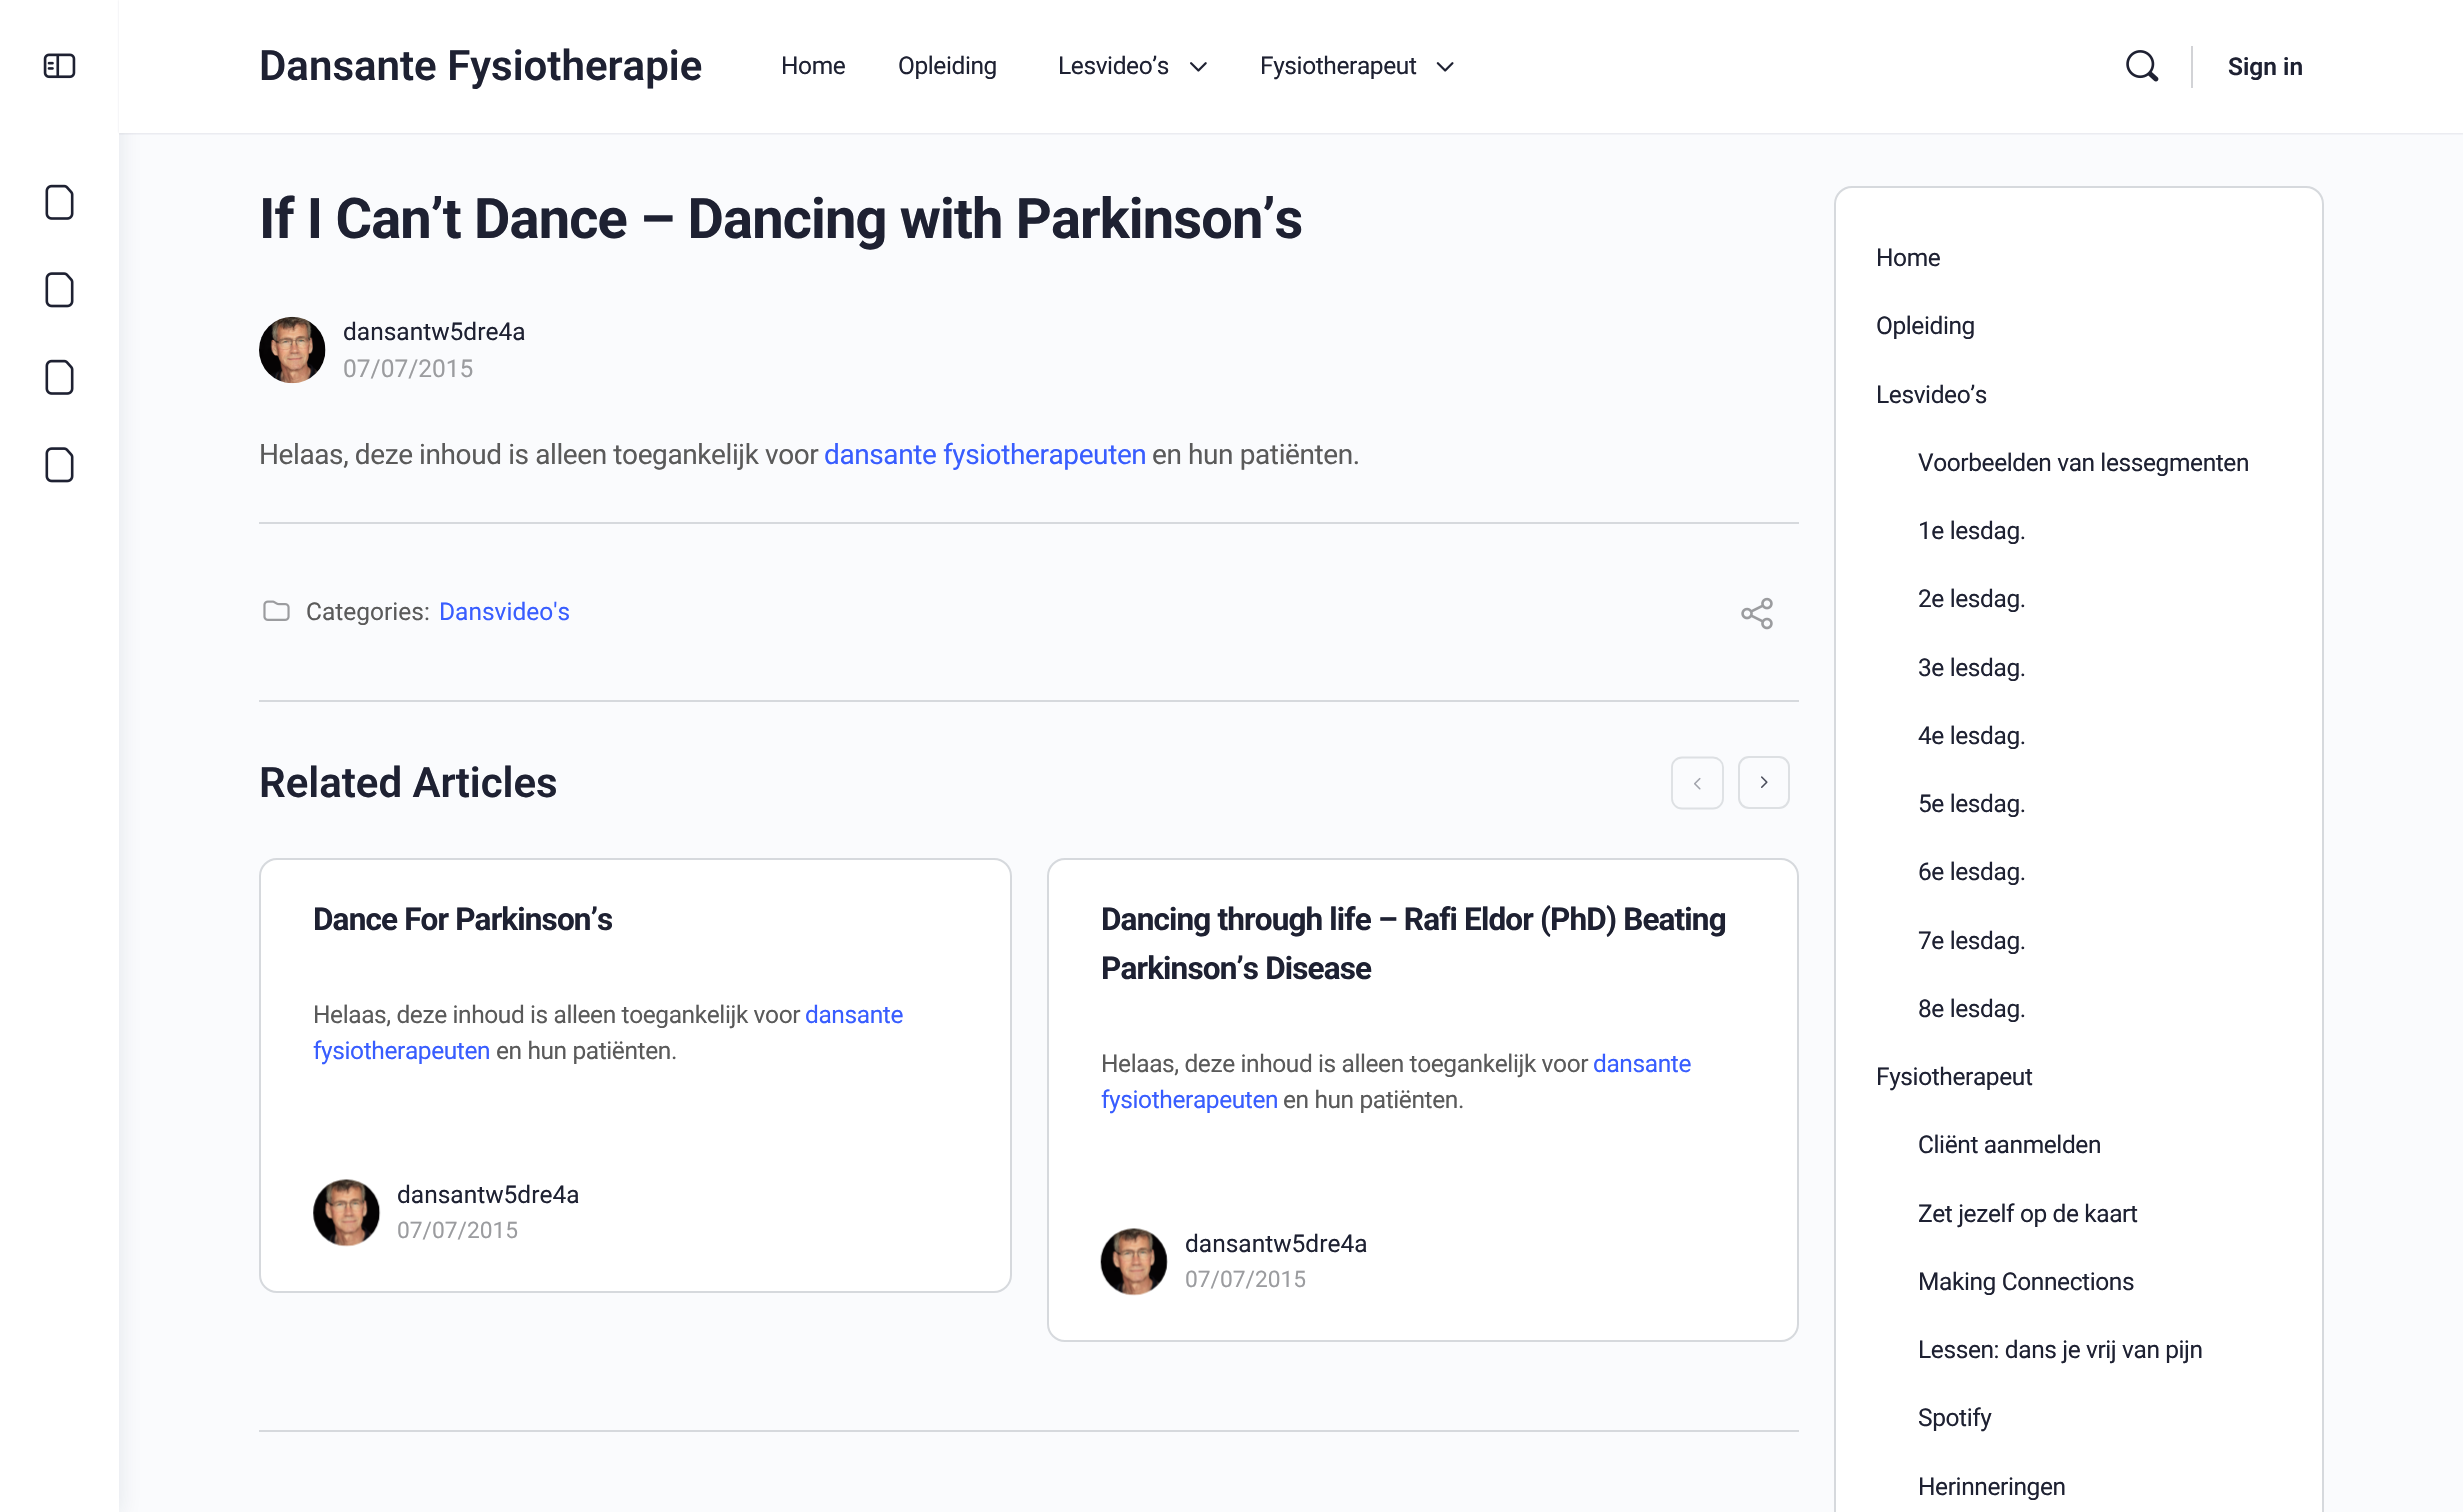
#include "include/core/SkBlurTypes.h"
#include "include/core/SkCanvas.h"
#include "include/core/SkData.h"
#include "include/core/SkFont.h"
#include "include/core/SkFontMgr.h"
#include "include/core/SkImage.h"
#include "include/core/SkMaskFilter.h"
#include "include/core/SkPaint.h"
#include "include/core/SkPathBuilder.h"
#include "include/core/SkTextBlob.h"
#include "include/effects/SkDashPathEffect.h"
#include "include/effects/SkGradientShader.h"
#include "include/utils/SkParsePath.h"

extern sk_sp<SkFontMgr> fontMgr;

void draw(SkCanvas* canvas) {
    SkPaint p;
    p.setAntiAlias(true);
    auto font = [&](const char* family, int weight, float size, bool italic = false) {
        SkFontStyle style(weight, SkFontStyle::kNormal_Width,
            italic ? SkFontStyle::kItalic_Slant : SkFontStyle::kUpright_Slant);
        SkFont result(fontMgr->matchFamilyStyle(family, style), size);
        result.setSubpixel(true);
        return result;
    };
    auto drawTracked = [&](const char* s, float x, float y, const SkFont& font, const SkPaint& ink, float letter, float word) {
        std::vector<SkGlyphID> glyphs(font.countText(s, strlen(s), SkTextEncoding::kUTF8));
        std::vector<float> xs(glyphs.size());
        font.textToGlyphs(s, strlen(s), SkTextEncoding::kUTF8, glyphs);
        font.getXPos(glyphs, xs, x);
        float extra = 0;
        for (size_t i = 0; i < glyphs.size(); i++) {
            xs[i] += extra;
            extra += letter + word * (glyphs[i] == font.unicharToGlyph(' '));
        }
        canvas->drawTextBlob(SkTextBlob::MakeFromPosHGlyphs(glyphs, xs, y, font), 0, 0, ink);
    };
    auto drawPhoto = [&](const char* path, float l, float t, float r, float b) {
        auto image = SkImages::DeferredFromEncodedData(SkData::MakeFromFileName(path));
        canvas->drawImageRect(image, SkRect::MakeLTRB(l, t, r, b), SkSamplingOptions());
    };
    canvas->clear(0xFFFAFBFD);
    p.setColor(0x1A122B46);
    p.setMaskFilter(SkMaskFilter::MakeBlur(kNormal_SkBlurStyle, 11.5f));
    canvas->drawRect(SkRect::MakeLTRB(0, 5, 119, 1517), p);
    p.setMaskFilter(nullptr);
    p.setColor(0xFFFFFFFF);
    canvas->drawRect(SkRect::MakeLTRB(0, 0, 119, 1512), p);
    drawPhoto("media/1.png", 43, 53, 76, 79);
    drawPhoto("media/2.png", 45, 184, 74, 220);
    drawPhoto("media/3.png", 45, 272, 74, 308);
    drawPhoto("media/2.png", 45, 359, 74, 395);
    drawPhoto("media/3.png", 45, 447, 74, 483);
    p.setColor(0x2641476C);
    p.setMaskFilter(SkMaskFilter::MakeBlur(kNormal_SkBlurStyle, 1));
    canvas->drawRect(SkRect::MakeLTRB(119, 0, 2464, 133), p);
    p.setMaskFilter(nullptr);
    p.setColor(0x0D8B8D9D);
    canvas->drawRect(SkRect::MakeLTRB(119, 133, 2463, 135), p);
    p.setColor(0xFFFFFFFF);
    canvas->drawRect(SkRect::MakeLTRB(119, 0, 2463, 133), p);
    auto font1 = font("Roboto", 600, 42);
    p.setColor(0xFF1E2132);
    canvas->drawString("Dansante Fysiotherapie", 259, 80, font1, p);
    auto font2 = font("Roboto", 400, 24.5f);
    {
        const struct { const char* s; float x, y; } items[] = {
            {"Home", 781, 74},
            {"Opleiding", 898, 74},
            {"Lesvideo’s", 1058, 74},
        };
        for (auto [s, x, y] : items) {
            drawTracked(s, x, y, font2, p, -0.4f, 0);
        }
    }
    drawPhoto("media/4.png", 1190, 62, 1207, 72);
    drawTracked("Fysiotherapeut", 1260, 74, font2, p, -0.4f, 0);
    drawPhoto("media/5.png", 1436, 62, 1454, 72);
    drawPhoto("media/6.png", 2126, 50, 2159, 82);
    p.setColor(0xFFD2D3D6);
    canvas->drawRect(SkRect::MakeLTRB(2191, 46, 2193, 88), p);
    auto font3 = font("Roboto", 600, 24.5f);
    p.setColor(0xFF1E2132);
    canvas->drawString("Sign in", 2228, 75, font3, p);
    auto font4 = font("Roboto", 700, 56);
    drawTracked("If I Can’t Dance – Dancing with Parkinson’s", 259, 238, font4, p, -0.85f, 0);
    drawPhoto("media/7.png", 259, 316, 326, 384);
    canvas->drawString("dansantw5dre4a", 343, 340, font2, p);
    p.setColor(0xFF9B9C9F);
    canvas->drawString("07/07/2015", 343, 377, font2, p);
    auto font5 = font("Roboto", 400, 28);
    p.setColor(0xFF5A5A5A);
    drawTracked("Helaas, deze inhoud is alleen toegankelijk voor", 259, 464, font5, p, -0.4f, 0);
    p.setColor(0xFF385DFF);
    drawTracked("dansante fysiotherapeuten", 824, 464, font5, p, -0.4f, 0);
    p.setColor(0xFF5A5A5A);
    drawTracked("en hun patiënten.", 1152, 464, font5, p, -0.4f, 0);
    p.setColor(0xFFD6D9DD);
    canvas->drawRect(SkRect::MakeLTRB(259, 522, 1799, 524), p);
    drawPhoto("media/8.png", 263, 600, 290, 621);
    p.setColor(0xFF5A5A5A);
    canvas->drawString("Categories:", 306, 620, font2, p);
    p.setColor(0xFF385DFF);
    canvas->drawString("Dansvideo's", 439, 620, font2, p);
    drawPhoto("media/9.png", 1741, 597, 1773, 630);
    p.setColor(0xFFD6D9DD);
    canvas->drawRect(SkRect::MakeLTRB(259, 700, 1799, 702), p);
    canvas->drawRect(SkRect::MakeLTRB(259, 1430, 1799, 1432), p);
    p.setColor(0xFF1E2132);
    canvas->drawString("Related Articles", 259, 797, font1, p);
    p.setStyle(SkPaint::kStroke_Style);
    p.setStrokeWidth(1.8f);
    p.setColor(0xFFDDE0E3);
    canvas->drawPath(SkPathBuilder().moveTo(1713, 808.5f).lineTo(1682, 808.5f).cubicTo(1676.5f, 808.5f, 1672, 804, 1672, 798.5f).lineTo(1672, 767).cubicTo(1672, 762, 1676.5f, 757.5f, 1682, 757.5f).lineTo(1713, 757.5f).cubicTo(1718.5f, 757.5f, 1723, 762, 1723, 767).lineTo(1723, 798.5f).cubicTo(1723, 804, 1718.5f, 808.5f, 1713, 808.5f).close().detach(), p);
    drawPhoto("media/10.png", 1694, 777, 1701, 790);
    p.setStrokeWidth(2);
    canvas->drawRoundRect(SkRect::MakeLTRB(1739, 757, 1789, 808), 10, 10, p);
    drawPhoto("media/11.png", 1761, 776, 1768, 788);
    p.setStyle(SkPaint::kFill_Style);
    p.setColor(0xFFFFFFFF);
    canvas->drawRoundRect(SkRect::MakeLTRB(260, 859, 1011, 1292), 17, 17, p);
    p.setStyle(SkPaint::kStroke_Style);
    p.setColor(0xFFD6D9DD);
    canvas->drawRoundRect(SkRect::MakeLTRB(260, 859, 1011, 1292), 17, 17, p);
    auto font6 = font("Roboto", 700, 31.5f);
    p.setStyle(SkPaint::kFill_Style);
    p.setColor(0xFF1E2132);
    drawTracked("Dance For Parkinson’s", 313, 930, font6, p, -0.85f, 0);
    p.setColor(0xFF5A5A5A);
    drawTracked("Helaas, deze inhoud is alleen toegankelijk voor", 313, 1023, font2, p, -0.4f, 0);
    p.setColor(0xFF385DFF);
    drawTracked("dansante", 805, 1023, font2, p, -0.4f, 0);
    drawTracked("fysiotherapeuten", 313, 1059, font2, p, -0.4f, 0);
    p.setColor(0xFF5A5A5A);
    drawTracked("en hun patiënten.", 496, 1059, font2, p, -0.4f, 0);
    drawPhoto("media/12.png", 313, 1179, 381, 1247);
    p.setColor(0xFF1E2132);
    canvas->drawString("dansantw5dre4a", 397, 1203, font2, p);
    auto font7 = font("Roboto", 400, 22.75f);
    p.setColor(0xFF9B9C9F);
    canvas->drawString("07/07/2015", 397, 1238, font7, p);
    p.setColor(0xFFFFFFFF);
    canvas->drawRoundRect(SkRect::MakeLTRB(1048, 859, 1798, 1341), 17, 17, p);
    p.setStyle(SkPaint::kStroke_Style);
    p.setColor(0xFFD6D9DD);
    canvas->drawRoundRect(SkRect::MakeLTRB(1048, 859, 1798, 1341), 17, 17, p);
    p.setStyle(SkPaint::kFill_Style);
    p.setColor(0xFF1E2132);
    drawTracked("Dancing through life – Rafi Eldor (PhD) Beating", 1101, 930, font6, p, -0.85f, 0);
    drawTracked("Parkinson’s Disease", 1101, 979, font6, p, -0.85f, 0);
    p.setColor(0xFF5A5A5A);
    drawTracked("Helaas, deze inhoud is alleen toegankelijk voor", 1101, 1072, font2, p, -0.4f, 0);
    p.setColor(0xFF385DFF);
    drawTracked("dansante", 1593, 1072, font2, p, -0.4f, 0);
    drawTracked("fysiotherapeuten", 1101, 1108, font2, p, -0.4f, 0);
    p.setColor(0xFF5A5A5A);
    drawTracked("en hun patiënten.", 1283, 1108, font2, p, -0.4f, 0);
    drawPhoto("media/13.png", 1100, 1228, 1168, 1296);
    p.setColor(0xFF1E2132);
    canvas->drawString("dansantw5dre4a", 1185, 1252, font2, p);
    p.setColor(0xFF9B9C9F);
    canvas->drawString("07/07/2015", 1185, 1287, font7, p);
    p.setColor(0xFFFFFFFF);
    canvas->drawRoundRect(SkRect::MakeLTRB(1835, 187, 2323, 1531), 17, 17, p);
    p.setStyle(SkPaint::kStroke_Style);
    p.setColor(0xFFD6D9DD);
    canvas->drawRoundRect(SkRect::MakeLTRB(1835, 187, 2323, 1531), 17, 17, p);
    p.setStyle(SkPaint::kFill_Style);
    p.setColor(0xFF1E2132);
    {
        const struct { const char* s; float x, y; } items[] = {
            {"Home", 1876, 266},
            {"Opleiding", 1876, 334},
            {"Lesvideo’s", 1876, 403},
            {"Voorbeelden van lessegmenten", 1918, 471},
            {"1e lesdag.", 1918, 539},
            {"2e lesdag.", 1918, 607},
            {"3e lesdag.", 1918, 676},
            {"4e lesdag.", 1918, 744},
            {"5e lesdag.", 1918, 812},
            {"6e lesdag.", 1918, 880},
            {"7e lesdag.", 1918, 949},
            {"8e lesdag.", 1918, 1017},
            {"Fysiotherapeut", 1876, 1085},
            {"Cliënt aanmelden", 1918, 1153},
            {"Zet jezelf op de kaart", 1918, 1222},
            {"Making Connections", 1918, 1290},
            {"Lessen: dans je vrij van pijn", 1918, 1358},
            {"Spotify", 1918, 1426},
            {"Herinneringen", 1918, 1495},
        };
        for (auto [s, x, y] : items) {
            drawTracked(s, x, y, font2, p, -0.4f, 0);
        }
    }
}
